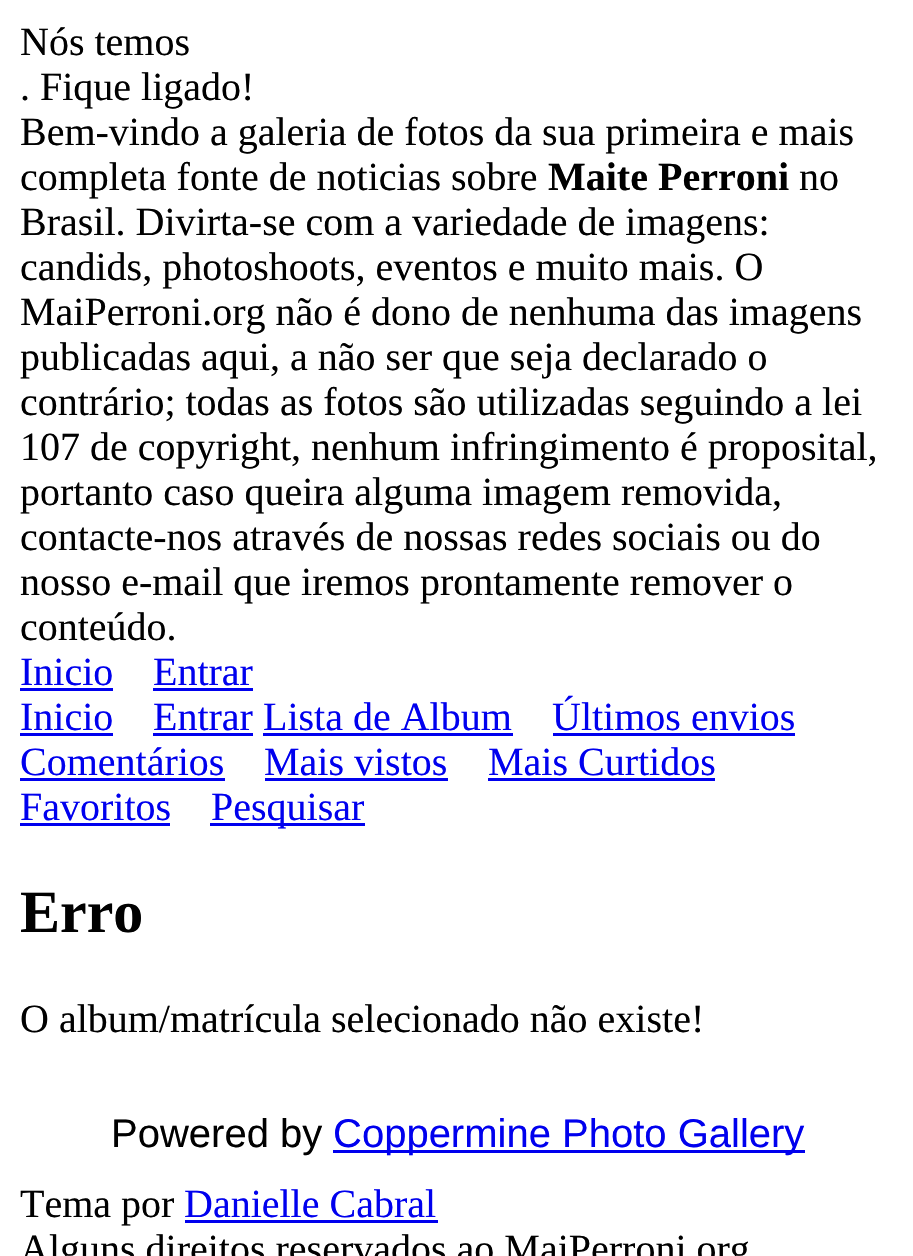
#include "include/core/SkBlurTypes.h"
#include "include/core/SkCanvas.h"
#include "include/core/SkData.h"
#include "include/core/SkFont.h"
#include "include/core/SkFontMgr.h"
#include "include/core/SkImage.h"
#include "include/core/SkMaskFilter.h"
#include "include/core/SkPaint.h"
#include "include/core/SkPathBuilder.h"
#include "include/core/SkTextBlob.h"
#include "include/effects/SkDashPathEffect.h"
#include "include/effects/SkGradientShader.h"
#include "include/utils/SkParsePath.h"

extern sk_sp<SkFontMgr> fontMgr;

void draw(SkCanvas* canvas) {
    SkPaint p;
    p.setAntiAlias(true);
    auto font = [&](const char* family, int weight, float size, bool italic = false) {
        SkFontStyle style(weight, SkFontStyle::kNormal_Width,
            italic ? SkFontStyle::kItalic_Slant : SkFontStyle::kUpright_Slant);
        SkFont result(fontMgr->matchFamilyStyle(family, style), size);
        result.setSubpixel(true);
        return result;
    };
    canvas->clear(0xFFFFFFFF);
    auto font1 = font("Liberation Serif", 400, 40);
    p.setColor(0xFF000000);
    {
        const struct { const char* s; float x, y; } items[] = {
            {"Nós temos", 20, 55},
            {". Fique ligado!", 20, 100},
            {"Bem-vindo a galeria de fotos da sua primeira e mais", 20, 145},
            {"completa fonte de noticias sobre", 20, 190},
        };
        for (auto [s, x, y] : items) {
            canvas->drawString(s, x, y, font1, p);
        }
    }
    auto font2 = font("Liberation Serif", 700, 40);
    canvas->drawString("Maite Perroni", 548, 190, font2, p);
    {
        const struct { const char* s; float x, y; } items[] = {
            {"no", 799, 190},
            {"Brasil. Divirta-se com a variedade de imagens:", 20, 235},
            {"candids, photoshoots, eventos e muito mais. O", 20, 280},
            {"MaiPerroni.org não é dono de nenhuma das imagens", 20, 325},
            {"publicadas aqui, a não ser que seja declarado o", 20, 370},
            {"contrário; todas as fotos são utilizadas seguindo a lei", 20, 415},
            {"107 de copyright, nenhum infringimento é proposital,", 20, 460},
            {"portanto caso queira alguma imagem removida,", 20, 505},
            {"contacte-nos através de nossas redes sociais ou do", 20, 550},
            {"nosso e-mail que iremos prontamente remover o", 20, 595},
            {"conteúdo.", 20, 640},
        };
        for (auto [s, x, y] : items) {
            canvas->drawString(s, x, y, font1, p);
        }
    }
    p.setColor(0xFF0000EE);
    canvas->drawString("Inicio", 20, 685, font1, p);
    canvas->drawRect(SkRect::MakeLTRB(20, 688, 113, 691), p);
    canvas->drawString("Entrar", 153, 685, font1, p);
    canvas->drawRect(SkRect::MakeLTRB(153, 688, 253, 691), p);
    canvas->drawString("Inicio", 20, 730, font1, p);
    canvas->drawRect(SkRect::MakeLTRB(20, 733, 113, 736), p);
    canvas->drawString("Entrar Lista de Album", 153, 730, font1, p);
    canvas->drawRect(SkRect::MakeLTRB(153, 733, 253, 736), p);
    canvas->drawString("Últimos envios", 552, 730, font1, p);
    canvas->drawRect(SkRect::MakeLTRB(553, 733, 795, 736), p);
    canvas->drawRect(SkRect::MakeLTRB(263, 733, 513, 736), p);
    canvas->drawString("Comentários", 20, 775, font1, p);
    canvas->drawRect(SkRect::MakeLTRB(20, 778, 225, 781), p);
    canvas->drawString("Mais vistos", 264, 775, font1, p);
    canvas->drawRect(SkRect::MakeLTRB(265, 778, 448, 781), p);
    canvas->drawString("Mais Curtidos", 488, 775, font1, p);
    canvas->drawRect(SkRect::MakeLTRB(488, 778, 715, 781), p);
    canvas->drawString("Favoritos", 20, 820, font1, p);
    canvas->drawRect(SkRect::MakeLTRB(20, 823, 170, 826), p);
    canvas->drawRect(SkRect::MakeLTRB(210, 823, 365, 826), p);
    canvas->drawString("Pesquisar", 211, 820, font1, p);
    auto font3 = font("Liberation Serif", 700, 60);
    p.setColor(0xFF000000);
    canvas->drawString("Erro", 20, 932, font3, p);
    canvas->drawString("O album/matrícula selecionado não existe!", 20, 1032, font1, p);
    auto font4 = font("Liberation Sans", 400, 40);
    canvas->drawString("Powered by", 111, 1147, font4, p);
    p.setColor(0xFF0000EE);
    canvas->drawRect(SkRect::MakeLTRB(333, 1150, 805, 1153), p);
    canvas->drawString("Coppermine Photo Gallery", 333, 1147, font4, p);
    p.setColor(0xFF000000);
    canvas->drawString("Tema por", 20, 1217, font1, p);
    p.setColor(0xFF0000EE);
    canvas->drawString("Danielle Cabral", 184, 1217, font1, p);
    canvas->drawRect(SkRect::MakeLTRB(185, 1220, 438, 1223), p);
    p.setColor(0xFF000000);
    canvas->drawString("Alguns direitos reservados ao MaiPerroni.org", 20, 1262, font1, p);
}
